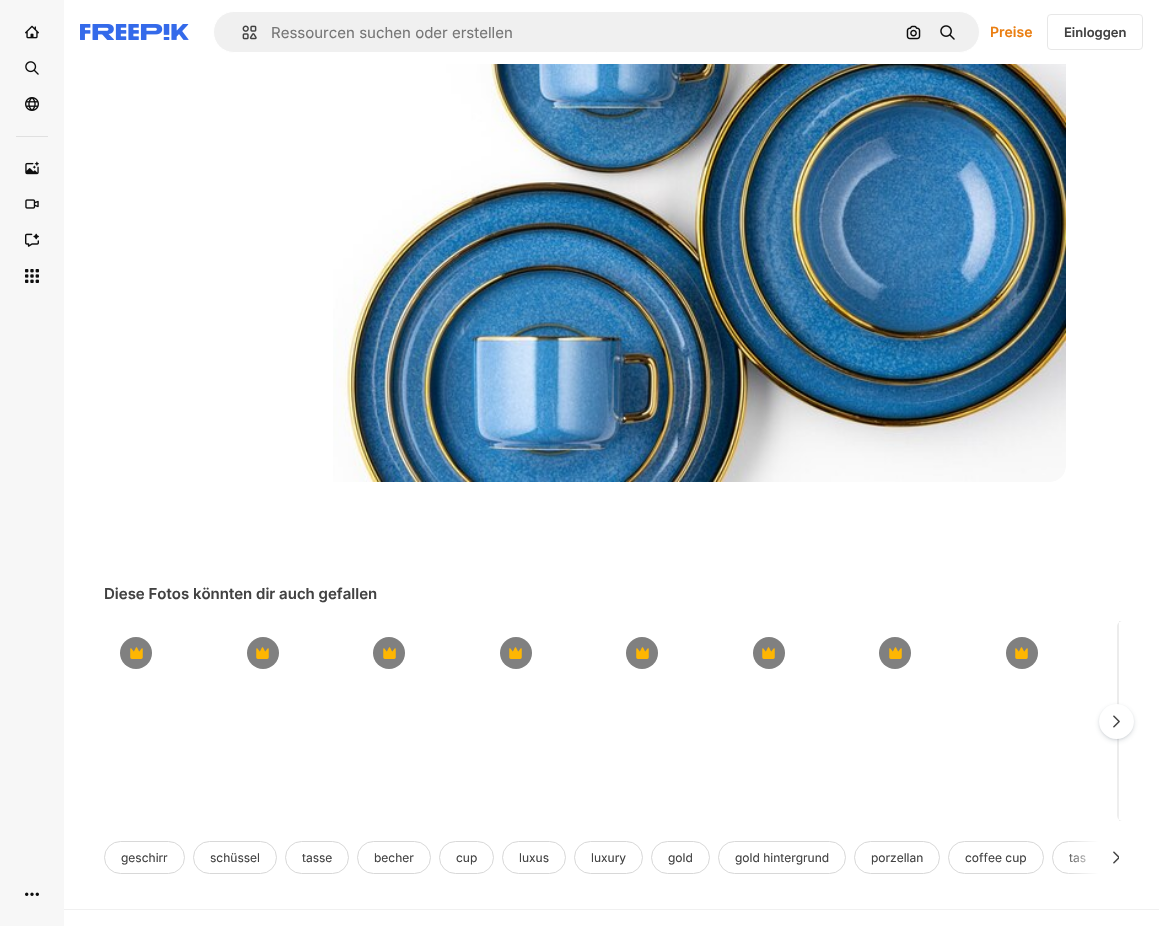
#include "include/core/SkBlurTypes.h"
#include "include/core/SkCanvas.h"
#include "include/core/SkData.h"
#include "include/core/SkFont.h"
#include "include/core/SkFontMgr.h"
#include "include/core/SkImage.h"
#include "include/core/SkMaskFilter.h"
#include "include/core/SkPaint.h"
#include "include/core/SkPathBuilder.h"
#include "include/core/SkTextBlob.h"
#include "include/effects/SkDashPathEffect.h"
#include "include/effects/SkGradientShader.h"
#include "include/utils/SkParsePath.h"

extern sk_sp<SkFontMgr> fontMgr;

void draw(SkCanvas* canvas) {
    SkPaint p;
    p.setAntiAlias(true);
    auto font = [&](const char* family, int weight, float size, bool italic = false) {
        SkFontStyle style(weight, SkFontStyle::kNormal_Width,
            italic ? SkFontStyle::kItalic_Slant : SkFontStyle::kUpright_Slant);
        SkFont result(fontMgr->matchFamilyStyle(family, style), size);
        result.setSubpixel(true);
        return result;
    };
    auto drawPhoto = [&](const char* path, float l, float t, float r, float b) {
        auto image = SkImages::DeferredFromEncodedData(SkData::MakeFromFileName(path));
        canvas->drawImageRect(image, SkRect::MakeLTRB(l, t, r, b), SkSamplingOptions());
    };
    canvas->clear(0xFFFFFFFF);
    p.setColor(0xFFF7F7F7);
    canvas->drawRect(SkRect::MakeLTRB(0, 0, 64, 926), p);
    drawPhoto("media/1.png", 25, 25, 39, 39);
    drawPhoto("media/2.png", 25, 61, 39, 75);
    drawPhoto("media/3.png", 25, 97, 39, 111);
    p.setColor(0xFFE0E0E0);
    canvas->drawRect(SkRect::MakeLTRB(16, 136, 48, 137), p);
    drawPhoto("media/4.png", 25, 161, 39, 175);
    drawPhoto("media/5.png", 25, 199, 39, 209);
    drawPhoto("media/6.png", 25, 233, 39, 247);
    drawPhoto("media/7.png", 25, 269, 39, 283);
    drawPhoto("media/8.png", 25, 892, 39, 896);
    drawPhoto("media/9.png", 80, 24, 189, 40);
    p.setColor(0xFFF0F0F0);
    canvas->drawRoundRect(SkRect::MakeLTRB(213.5f, 11.5f, 979.5f, 52.5f), 20.5f, 20.5f, p);
    p.setStyle(SkPaint::kStroke_Style);
    p.setStrokeWidth(1);
    p.setColor(0xFFFFFFFF);
    canvas->drawRoundRect(SkRect::MakeLTRB(213.5f, 11.5f, 979.5f, 52.5f), 20.5f, 20.5f, p);
    drawPhoto("media/10.png", 242, 25, 257, 40);
    auto font1 = font("Inter", 400, 15);
    p.setStyle(SkPaint::kFill_Style);
    p.setColor(0xFF777777);
    canvas->drawString("Ressourcen suchen oder erstellen", 271, 38, font1, p);
    drawPhoto("media/11.png", 906, 25, 921, 40);
    drawPhoto("media/12.png", 940, 25, 955, 40);
    auto font2 = font("Inter", 600, 14);
    p.setColor(0xFFEA7E11);
    canvas->drawString("Preise", 990, 37, font2, p);
    p.setStyle(SkPaint::kStroke_Style);
    p.setColor(0xFFE7E7E7);
    canvas->drawRoundRect(SkRect::MakeLTRB(1047.5f, 14.5f, 1142.5f, 49.5f), 3.5f, 3.5f, p);
    auto font3 = font("Inter", 600, 13);
    p.setStyle(SkPaint::kFill_Style);
    p.setColor(0xFF424242);
    canvas->drawString("Einloggen", 1064, 37, font3, p);
    drawPhoto("media/13.png", 333, 64, 1066, 482);
    auto font4 = font("Inter", 600, 15);
    canvas->drawString("Diese Fotos könnten dir auch gefallen", 104, 599, font4, p);
    p.setColor(0xFF808080);
    canvas->drawCircle(136, 653, 16, p);
    drawPhoto("media/14.png", 130, 647, 143, 659);
    canvas->drawCircle(263, 653, 16, p);
    drawPhoto("media/14.png", 256, 647, 269, 659);
    canvas->drawCircle(389, 653, 16, p);
    drawPhoto("media/14.png", 383, 647, 396, 659);
    canvas->drawCircle(516, 653, 16, p);
    drawPhoto("media/14.png", 509, 647, 522, 659);
    canvas->drawCircle(642, 653, 16, p);
    drawPhoto("media/14.png", 636, 647, 649, 659);
    canvas->drawCircle(769, 653, 16, p);
    drawPhoto("media/14.png", 762, 647, 775, 659);
    canvas->drawCircle(895, 653, 16, p);
    drawPhoto("media/14.png", 889, 647, 902, 659);
    canvas->drawCircle(1022, 653, 16, p);
    drawPhoto("media/14.png", 1015, 647, 1028, 659);
    {
        const SkColor colors[] = {0xFFECECEC, 0xFFF5F5F5, 0xFFECECEC};
        const float stops[] = {0.08f, 0.18f, 0.33f};
        const SkPoint ends[] = {{1120, 613}, {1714, 829}};
        p.setShader(SkGradientShader::MakeLinear(ends, colors, stops, 3, SkTileMode::kClamp));
        p.setAlpha(255);
    }
    canvas->drawPath(SkPathBuilder().moveTo(1123, 621).lineTo(1119, 621).lineTo(1119, 821).lineTo(1123, 821).cubicTo(1119.5f, 821, 1117, 818.5f, 1117, 815).lineTo(1117, 627).cubicTo(1117, 623.5f, 1119.5f, 621, 1123, 621).close().detach(), p);
    p.setShader(nullptr);
    p.setColor(0x26374957);
    p.setMaskFilter(SkMaskFilter::MakeBlur(kNormal_SkBlurStyle, 2.5f));
    canvas->drawRoundRect(SkRect::MakeLTRB(1099, 706, 1134, 741), 17.5f, 17.5f, p);
    p.setMaskFilter(nullptr);
    p.setColor(0x1A374957);
    p.setMaskFilter(SkMaskFilter::MakeBlur(kNormal_SkBlurStyle, 1));
    canvas->drawRoundRect(SkRect::MakeLTRB(1099, 705, 1134, 740), 17.5f, 17.5f, p);
    p.setMaskFilter(nullptr);
    p.setColor(0xFFFFFFFF);
    canvas->drawCircle(1116.5f, 721.5f, 17.5f, p);
    drawPhoto("media/15.png", 1113, 715, 1120, 728);
    p.setStyle(SkPaint::kStroke_Style);
    p.setColor(0xFFD8D8D8);
    canvas->drawRoundRect(SkRect::MakeLTRB(104.5f, 841.5f, 184.5f, 873.5f), 16, 16, p);
    auto font5 = font("Inter", 400, 12);
    p.setStyle(SkPaint::kFill_Style);
    p.setColor(0xFF424242);
    canvas->drawString("geschirr", 121, 862, font5, p);
    p.setStyle(SkPaint::kStroke_Style);
    p.setColor(0xFFD8D8D8);
    canvas->drawRoundRect(SkRect::MakeLTRB(193.5f, 841.5f, 276.5f, 873.5f), 16, 16, p);
    p.setStyle(SkPaint::kFill_Style);
    p.setColor(0xFF424242);
    canvas->drawString("schüssel", 210, 862, font5, p);
    p.setStyle(SkPaint::kStroke_Style);
    p.setColor(0xFFD8D8D8);
    canvas->drawRoundRect(SkRect::MakeLTRB(285.5f, 841.5f, 348.5f, 873.5f), 16, 16, p);
    p.setStyle(SkPaint::kFill_Style);
    p.setColor(0xFF424242);
    canvas->drawString("tasse", 302, 862, font5, p);
    p.setStyle(SkPaint::kStroke_Style);
    p.setColor(0xFFD8D8D8);
    canvas->drawRoundRect(SkRect::MakeLTRB(357.5f, 841.5f, 430.5f, 873.5f), 16, 16, p);
    p.setStyle(SkPaint::kFill_Style);
    p.setColor(0xFF424242);
    canvas->drawString("becher", 374, 862, font5, p);
    p.setStyle(SkPaint::kStroke_Style);
    p.setColor(0xFFD8D8D8);
    canvas->drawRoundRect(SkRect::MakeLTRB(439.5f, 841.5f, 493.5f, 873.5f), 16, 16, p);
    p.setStyle(SkPaint::kFill_Style);
    p.setColor(0xFF424242);
    canvas->drawString("cup", 456, 862, font5, p);
    p.setStyle(SkPaint::kStroke_Style);
    p.setColor(0xFFD8D8D8);
    canvas->drawRoundRect(SkRect::MakeLTRB(502.5f, 841.5f, 565.5f, 873.5f), 16, 16, p);
    p.setStyle(SkPaint::kFill_Style);
    p.setColor(0xFF424242);
    canvas->drawString("luxus", 519, 862, font5, p);
    p.setStyle(SkPaint::kStroke_Style);
    p.setColor(0xFFD8D8D8);
    canvas->drawRoundRect(SkRect::MakeLTRB(574.5f, 841.5f, 642.5f, 873.5f), 16, 16, p);
    p.setStyle(SkPaint::kFill_Style);
    p.setColor(0xFF424242);
    canvas->drawString("luxury", 591, 862, font5, p);
    p.setStyle(SkPaint::kStroke_Style);
    p.setColor(0xFFD8D8D8);
    canvas->drawRoundRect(SkRect::MakeLTRB(651.5f, 841.5f, 709.5f, 873.5f), 16, 16, p);
    p.setStyle(SkPaint::kFill_Style);
    p.setColor(0xFF424242);
    canvas->drawString("gold", 668, 862, font5, p);
    p.setStyle(SkPaint::kStroke_Style);
    p.setColor(0xFFD8D8D8);
    canvas->drawRoundRect(SkRect::MakeLTRB(718.5f, 841.5f, 845.5f, 873.5f), 16, 16, p);
    p.setStyle(SkPaint::kFill_Style);
    p.setColor(0xFF424242);
    canvas->drawString("gold hintergrund", 735, 862, font5, p);
    p.setStyle(SkPaint::kStroke_Style);
    p.setColor(0xFFD8D8D8);
    canvas->drawRoundRect(SkRect::MakeLTRB(854.5f, 841.5f, 939.5f, 873.5f), 16, 16, p);
    p.setStyle(SkPaint::kFill_Style);
    p.setColor(0xFF424242);
    canvas->drawString("porzellan", 871, 862, font5, p);
    p.setStyle(SkPaint::kStroke_Style);
    p.setColor(0xFFD8D8D8);
    canvas->drawRoundRect(SkRect::MakeLTRB(948.5f, 841.5f, 1043.5f, 873.5f), 16, 16, p);
    p.setStyle(SkPaint::kFill_Style);
    p.setColor(0xFF424242);
    canvas->drawString("coffee cup", 965, 862, font5, p);
    canvas->save();
    canvas->clipRect(SkRect::MakeLTRB(104, 841, 1119, 874));
    p.setStyle(SkPaint::kStroke_Style);
    p.setColor(0xFFD8D8D8);
    canvas->drawRoundRect(SkRect::MakeLTRB(1052.5f, 841.5f, 1136.5f, 873.5f), 16, 16, p);
    canvas->restore();
    p.setStyle(SkPaint::kFill_Style);
    p.setColor(0xFF424242);
    canvas->drawString("tas", 1069, 862, font5, p);
    p.setColor(0xFFFFFFFF);
    canvas->drawRect(SkRect::MakeLTRB(1099, 841, 1119, 874), p);
    {
        const SkColor colors[] = {0xFFFFFFFF, 0x00FFFFFF};
        const float stops[] = {0, 1};
        const SkPoint ends[] = {{1099, 858}, {1064, 858}};
        p.setShader(SkGradientShader::MakeLinear(ends, colors, stops, 2, SkTileMode::kClamp));
        p.setAlpha(255);
    }
    canvas->drawRect(SkRect::MakeLTRB(1067, 841, 1099, 874), p);
    drawPhoto("media/16.png", 1113, 851, 1119, 864);
    p.setShader(nullptr);
    p.setColor(0xFFF0F0F0);
    canvas->drawRect(SkRect::MakeLTRB(64, 909, 1159, 910), p);
}
